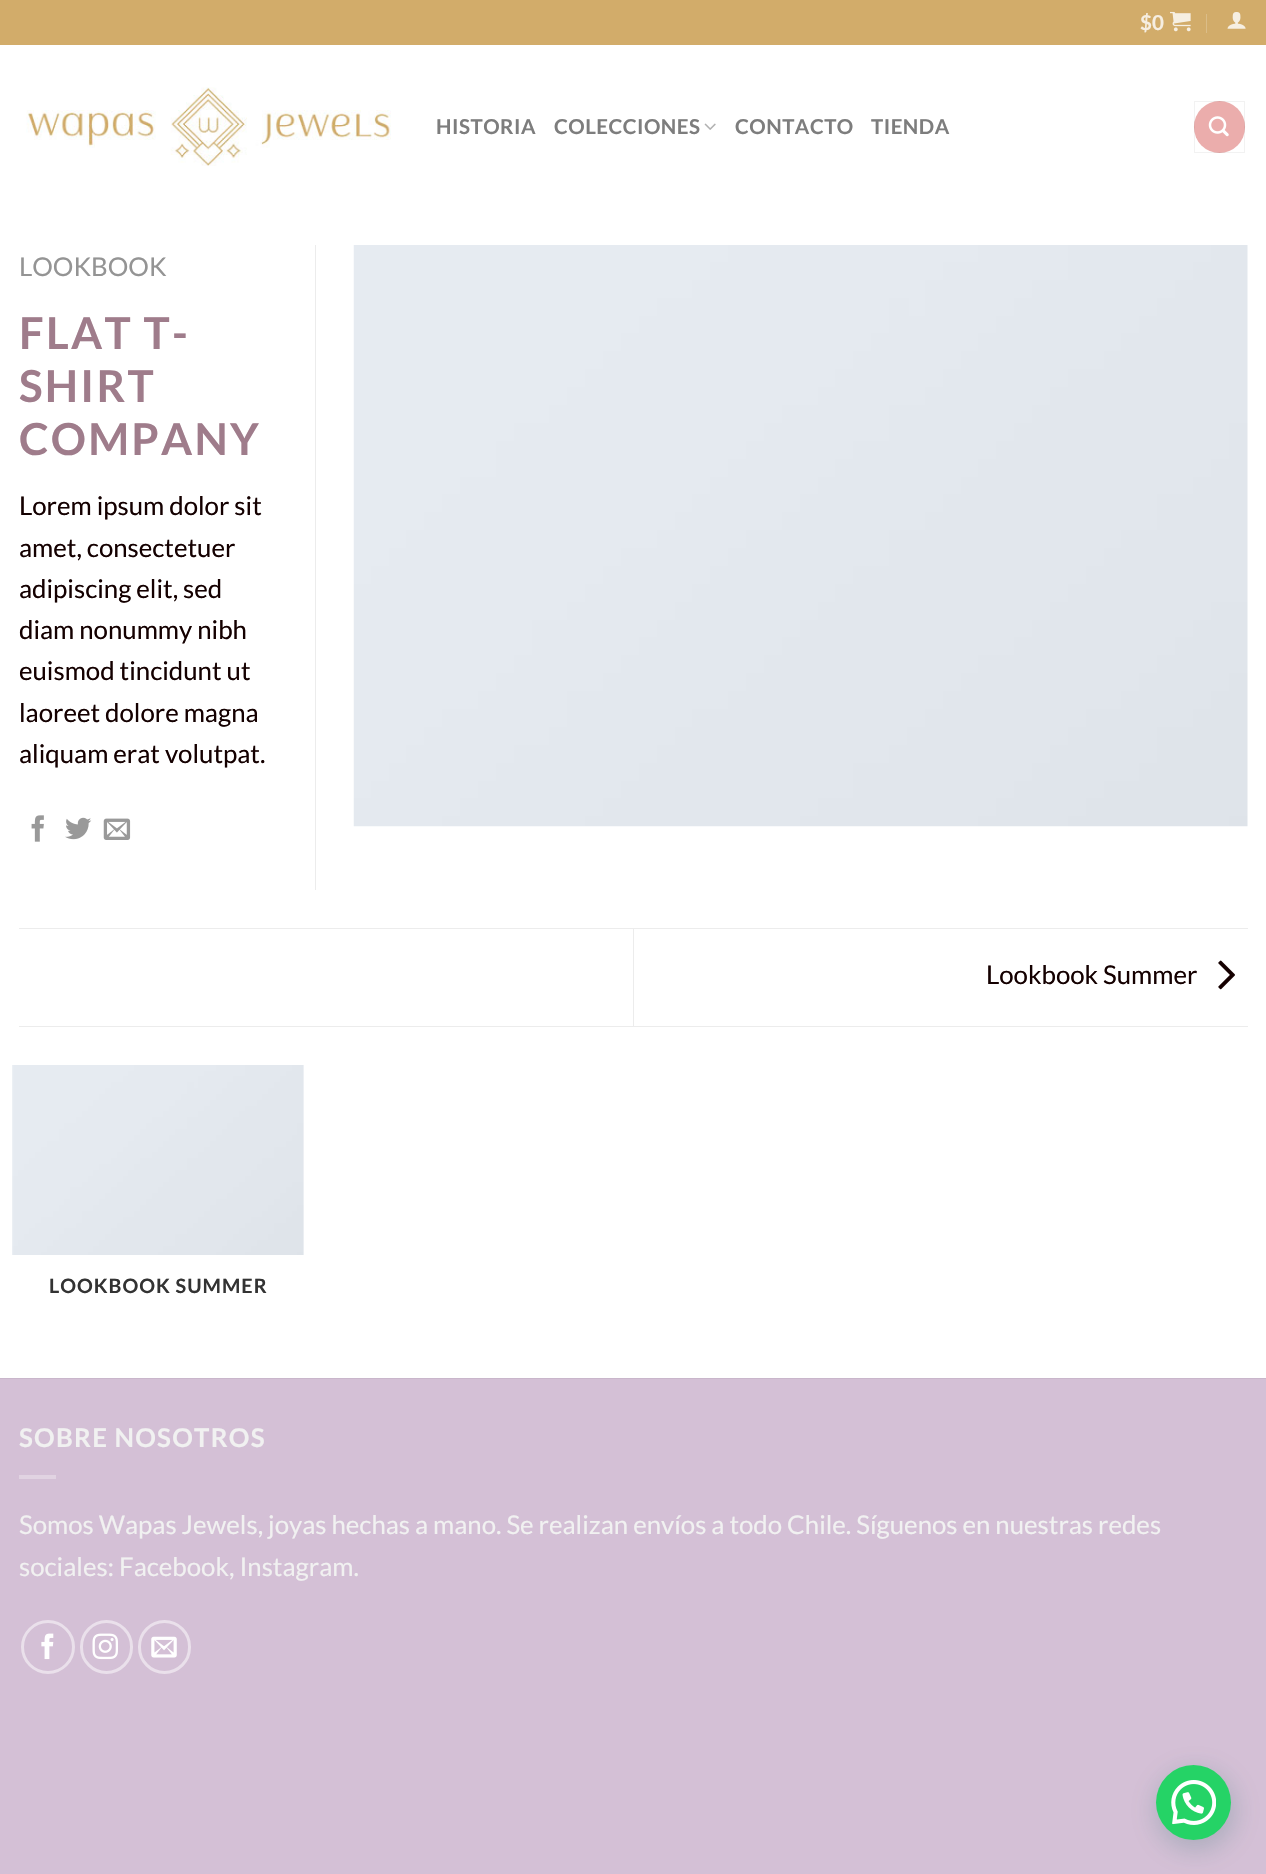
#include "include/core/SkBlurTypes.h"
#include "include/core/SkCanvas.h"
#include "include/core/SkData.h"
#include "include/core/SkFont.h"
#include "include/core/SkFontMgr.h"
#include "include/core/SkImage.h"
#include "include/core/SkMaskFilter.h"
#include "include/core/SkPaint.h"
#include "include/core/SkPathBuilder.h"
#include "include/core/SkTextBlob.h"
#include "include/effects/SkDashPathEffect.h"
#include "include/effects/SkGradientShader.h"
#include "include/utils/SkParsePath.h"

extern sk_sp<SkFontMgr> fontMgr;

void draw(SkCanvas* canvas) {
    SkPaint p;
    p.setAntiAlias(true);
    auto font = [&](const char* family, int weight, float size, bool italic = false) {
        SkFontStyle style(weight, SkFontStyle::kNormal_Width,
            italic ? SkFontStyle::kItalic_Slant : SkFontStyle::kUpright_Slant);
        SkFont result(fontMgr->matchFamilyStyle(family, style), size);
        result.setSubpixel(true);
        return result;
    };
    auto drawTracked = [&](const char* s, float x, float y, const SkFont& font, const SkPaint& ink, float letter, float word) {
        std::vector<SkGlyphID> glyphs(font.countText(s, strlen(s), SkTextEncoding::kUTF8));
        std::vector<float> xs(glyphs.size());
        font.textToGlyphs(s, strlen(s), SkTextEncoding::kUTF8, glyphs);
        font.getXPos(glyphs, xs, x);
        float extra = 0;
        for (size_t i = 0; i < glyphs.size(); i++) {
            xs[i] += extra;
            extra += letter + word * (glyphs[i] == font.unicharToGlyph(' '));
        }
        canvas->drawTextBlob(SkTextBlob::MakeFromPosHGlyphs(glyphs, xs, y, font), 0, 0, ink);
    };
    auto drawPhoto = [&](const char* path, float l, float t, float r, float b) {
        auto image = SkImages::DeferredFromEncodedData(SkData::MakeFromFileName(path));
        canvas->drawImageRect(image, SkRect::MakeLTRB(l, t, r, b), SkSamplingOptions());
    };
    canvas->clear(0xFFD4C0D6);
    p.setColor(0xFFFFFFFF);
    canvas->drawRect(SkRect::MakeLTRB(0, 45, 1266, 1378), p);
    p.setColor(0xFFD2AC6A);
    canvas->drawRect(SkRect::MakeLTRB(0, 0, 1266, 45), p);
    auto font1 = font("Lato", 700, 20.5f);
    p.setColor(0xFFF6EEE1);
    canvas->drawString("$0", 1140, 30, font1, p);
    drawPhoto("media/1.png", 1170, 11, 1191, 32);
    p.setColor(0xFFDBBD88);
    canvas->drawRect(SkRect::MakeLTRB(1206, 14, 1207, 33), p);
    drawPhoto("media/2.png", 1227, 12, 1246, 29);
    drawPhoto("media/3.png", 26, 87, 391, 166);
    p.setColor(0xFF7D7D7D);
    drawTracked("HISTORIA", 436, 134, font1, p, 0.5f, 0);
    drawTracked("COLECCIONES", 554, 134, font1, p, 0.5f, 0);
    drawPhoto("media/4.png", 704, 123, 716, 130);
    drawTracked("CONTACTO", 735, 134, font1, p, 0.5f, 0);
    drawTracked("TIENDA", 871, 134, font1, p, 0.5f, 0);
    p.setColor(0xFFEBADAC);
    canvas->drawRoundRect(SkRect::MakeLTRB(1194, 101, 1245, 153), 25.5f, 25.5f, p);
    p.setStyle(SkPaint::kStroke_Style);
    p.setStrokeWidth(1);
    p.setColor(0x0D000000);
    canvas->drawRect(SkRect::MakeLTRB(1194.5f, 101.5f, 1244.5f, 152.5f), p);
    drawPhoto("media/5.png", 1208, 116, 1229, 137);
    p.setStyle(SkPaint::kFill_Style);
    p.setColor(0xFFECECEC);
    canvas->drawRect(SkRect::MakeLTRB(315, 245, 316, 890), p);
    auto font2 = font("Lato", 400, 25.8f);
    p.setColor(0xFF949494);
    canvas->drawString("LOOKBOOK", 19, 276, font2, p);
    auto font3 = font("Lato", 700, 44);
    p.setColor(0xFF9F7C8B);
    {
        const struct { const char* s; float x, y; } items[] = {
            {"FLAT T-", 19, 349},
            {"SHIRT", 19, 402},
            {"COMPANY", 19, 455},
        };
        for (auto [s, x, y] : items) {
            drawTracked(s, x, y, font3, p, 2.25f, 0);
        }
    }
    p.setColor(0xFF140000);
    {
        const struct { const char* s; float x, y; } items[] = {
            {"Lorem ipsum dolor sit", 19, 515},
            {"amet, consectetuer", 19, 557},
            {"adipiscing elit, sed", 19, 598},
            {"diam nonummy nibh", 19, 639},
            {"euismod tincidunt ut", 19, 680},
            {"laoreet dolore magna", 19, 722},
            {"aliquam erat volutpat.", 19, 763},
        };
        for (auto [s, x, y] : items) {
            canvas->drawString(s, x, y, font2, p);
        }
    }
    drawPhoto("media/6.png", 31, 815, 44, 842);
    drawPhoto("media/7.png", 65, 817, 92, 840);
    drawPhoto("media/8.png", 103, 818, 131, 840);
    drawPhoto("media/9.png", 353, 245, 1248, 827);
    {
        const struct { float l, t, r, b; SkColor color; } items[] = {
            {19, 928, 1248, 929, 0xFFECECEC},
            {19, 1026, 1248, 1027, 0xFFECECEC},
            {633, 929, 634, 1026, 0xFFECECEC},
        };
        for (auto [l, t, r, b, color] : items) {
            p.setColor(color);
            canvas->drawRect(SkRect::MakeLTRB(l, t, r, b), p);
        }
    }
    p.setColor(0xFF140000);
    canvas->drawString("Lookbook Summer", 986, 984, font2, p);
    drawPhoto("media/10.png", 1218, 960, 1235, 990);
    drawPhoto("media/11.png", 12, 1065, 304, 1255);
    auto font4 = font("Lato", 700, 19.75f);
    p.setColor(0xFF333333);
    drawTracked("LOOKBOOK SUMMER", 49, 1293, font4, p, 1, 0);
    p.setColor(0xFFC9B6CB);
    canvas->drawRect(SkRect::MakeLTRB(0, 1378, 1266, 1379), p);
    auto font5 = font("Lato", 700, 25.8f);
    p.setColor(0xFFF1F1F1);
    drawTracked("SOBRE NOSOTROS", 19, 1447, font5, p, 1.25f, 0);
    p.setColor(0xFFE1D3E2);
    canvas->drawRect(SkRect::MakeLTRB(19, 1475, 56, 1479), p);
    p.setColor(0xFFF1F1F1);
    canvas->drawString("Somos Wapas Jewels, joyas hechas a mano. Se realizan envíos a todo Chile. Síguenos en nuestras redes", 19, 1534, font2, p);
    canvas->drawString("sociales: Facebook, Instagram.", 19, 1576, font2, p);
    p.setStyle(SkPaint::kStroke_Style);
    p.setStrokeWidth(3);
    p.setColor(0xFFEAE0EB);
    canvas->drawCircle(48, 1647, 25.5f, p);
    drawPhoto("media/12.png", 41, 1633, 54, 1660);
    canvas->drawRoundRect(SkRect::MakeLTRB(81.5f, 1621.5f, 131.5f, 1672.5f), 25, 25, p);
    drawPhoto("media/13.png", 92, 1633, 118, 1660);
    canvas->drawRoundRect(SkRect::MakeLTRB(139.5f, 1621.5f, 189.5f, 1672.5f), 25, 25, p);
    drawPhoto("media/14.png", 151, 1636, 177, 1658);
    p.setStyle(SkPaint::kFill_Style);
    p.setColor(0x3D075E54);
    p.setMaskFilter(SkMaskFilter::MakeBlur(kNormal_SkBlurStyle, 15));
    canvas->drawRoundRect(SkRect::MakeLTRB(1158, 1773, 1233, 1848), 37.5f, 37.5f, p);
    p.setMaskFilter(nullptr);
    p.setColor(0xFF25D366);
    canvas->drawCircle(1193.5f, 1802.5f, 37.5f, p);
    drawPhoto("media/15.png", 1171, 1780, 1216, 1825);
}
